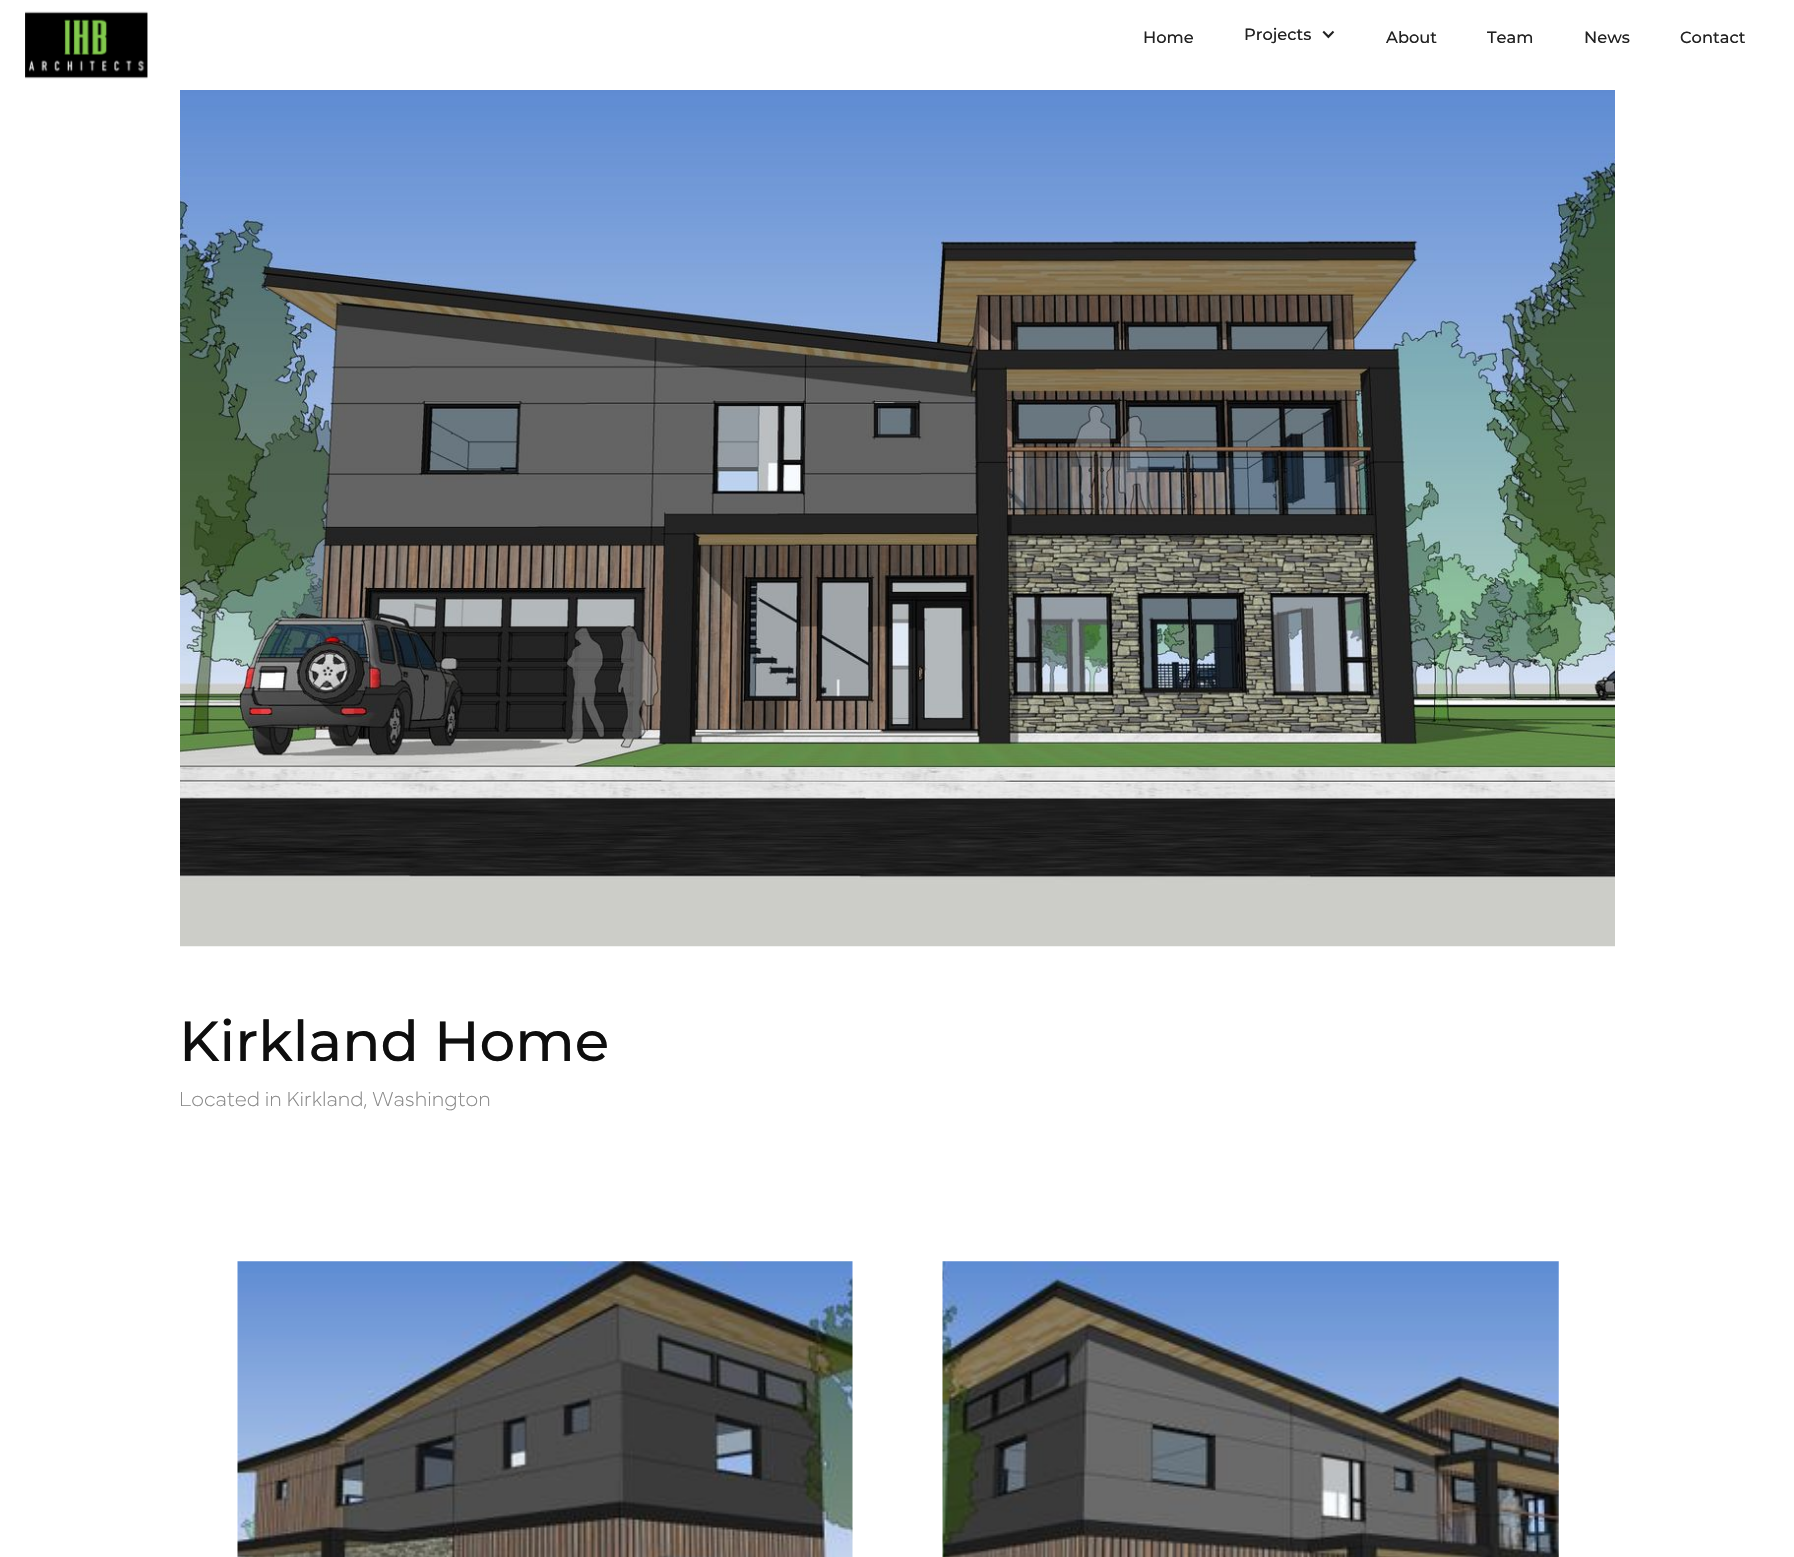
#include "include/core/SkBlurTypes.h"
#include "include/core/SkCanvas.h"
#include "include/core/SkData.h"
#include "include/core/SkFont.h"
#include "include/core/SkFontMgr.h"
#include "include/core/SkImage.h"
#include "include/core/SkMaskFilter.h"
#include "include/core/SkPaint.h"
#include "include/core/SkPathBuilder.h"
#include "include/core/SkTextBlob.h"
#include "include/effects/SkDashPathEffect.h"
#include "include/effects/SkGradientShader.h"
#include "include/utils/SkParsePath.h"

extern sk_sp<SkFontMgr> fontMgr;

void draw(SkCanvas* canvas) {
    SkPaint p;
    p.setAntiAlias(true);
    auto font = [&](const char* family, int weight, float size, bool italic = false) {
        SkFontStyle style(weight, SkFontStyle::kNormal_Width,
            italic ? SkFontStyle::kItalic_Slant : SkFontStyle::kUpright_Slant);
        SkFont result(fontMgr->matchFamilyStyle(family, style), size);
        result.setSubpixel(true);
        return result;
    };
    auto drawPhoto = [&](const char* path, float l, float t, float r, float b) {
        auto image = SkImages::DeferredFromEncodedData(SkData::MakeFromFileName(path));
        canvas->drawImageRect(image, SkRect::MakeLTRB(l, t, r, b), SkSamplingOptions());
    };
    canvas->clear(0xFFFFFFFF);
    drawPhoto("media/1.png", 25, 11, 148, 79);
    auto font1 = font("Montserrat", 500, 16.25f);
    p.setColor(0xFF222222);
    canvas->drawString("Home", 1143, 43, font1, p);
    canvas->drawString("Projects", 1244, 40, font1, p);
    drawPhoto("media/2.png", 1322, 30, 1335, 39);
    {
        const struct { const char* s; float x, y; } items[] = {
            {"About", 1386, 43},
            {"Team", 1487, 43},
            {"News", 1584, 43},
            {"Contact", 1680, 43},
        };
        for (auto [s, x, y] : items) {
            canvas->drawString(s, x, y, font1, p);
        }
    }
    drawPhoto("media/3.png", 180, 90, 1615, 947);
    auto font2 = font("Montserrat", 500, 56.25f);
    p.setColor(0xFF0E0E0E);
    canvas->drawString("Kirkland Home", 179, 1061, font2, p);
    auto font3 = font("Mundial", 400, 21.25f);
    p.setColor(0xFF888888);
    canvas->drawString("Located in Kirkland, Washington", 179, 1106, font3, p);
    drawPhoto("media/4.png", 237, 1261, 853, 1557);
    drawPhoto("media/5.png", 942, 1261, 1559, 1557);
}
